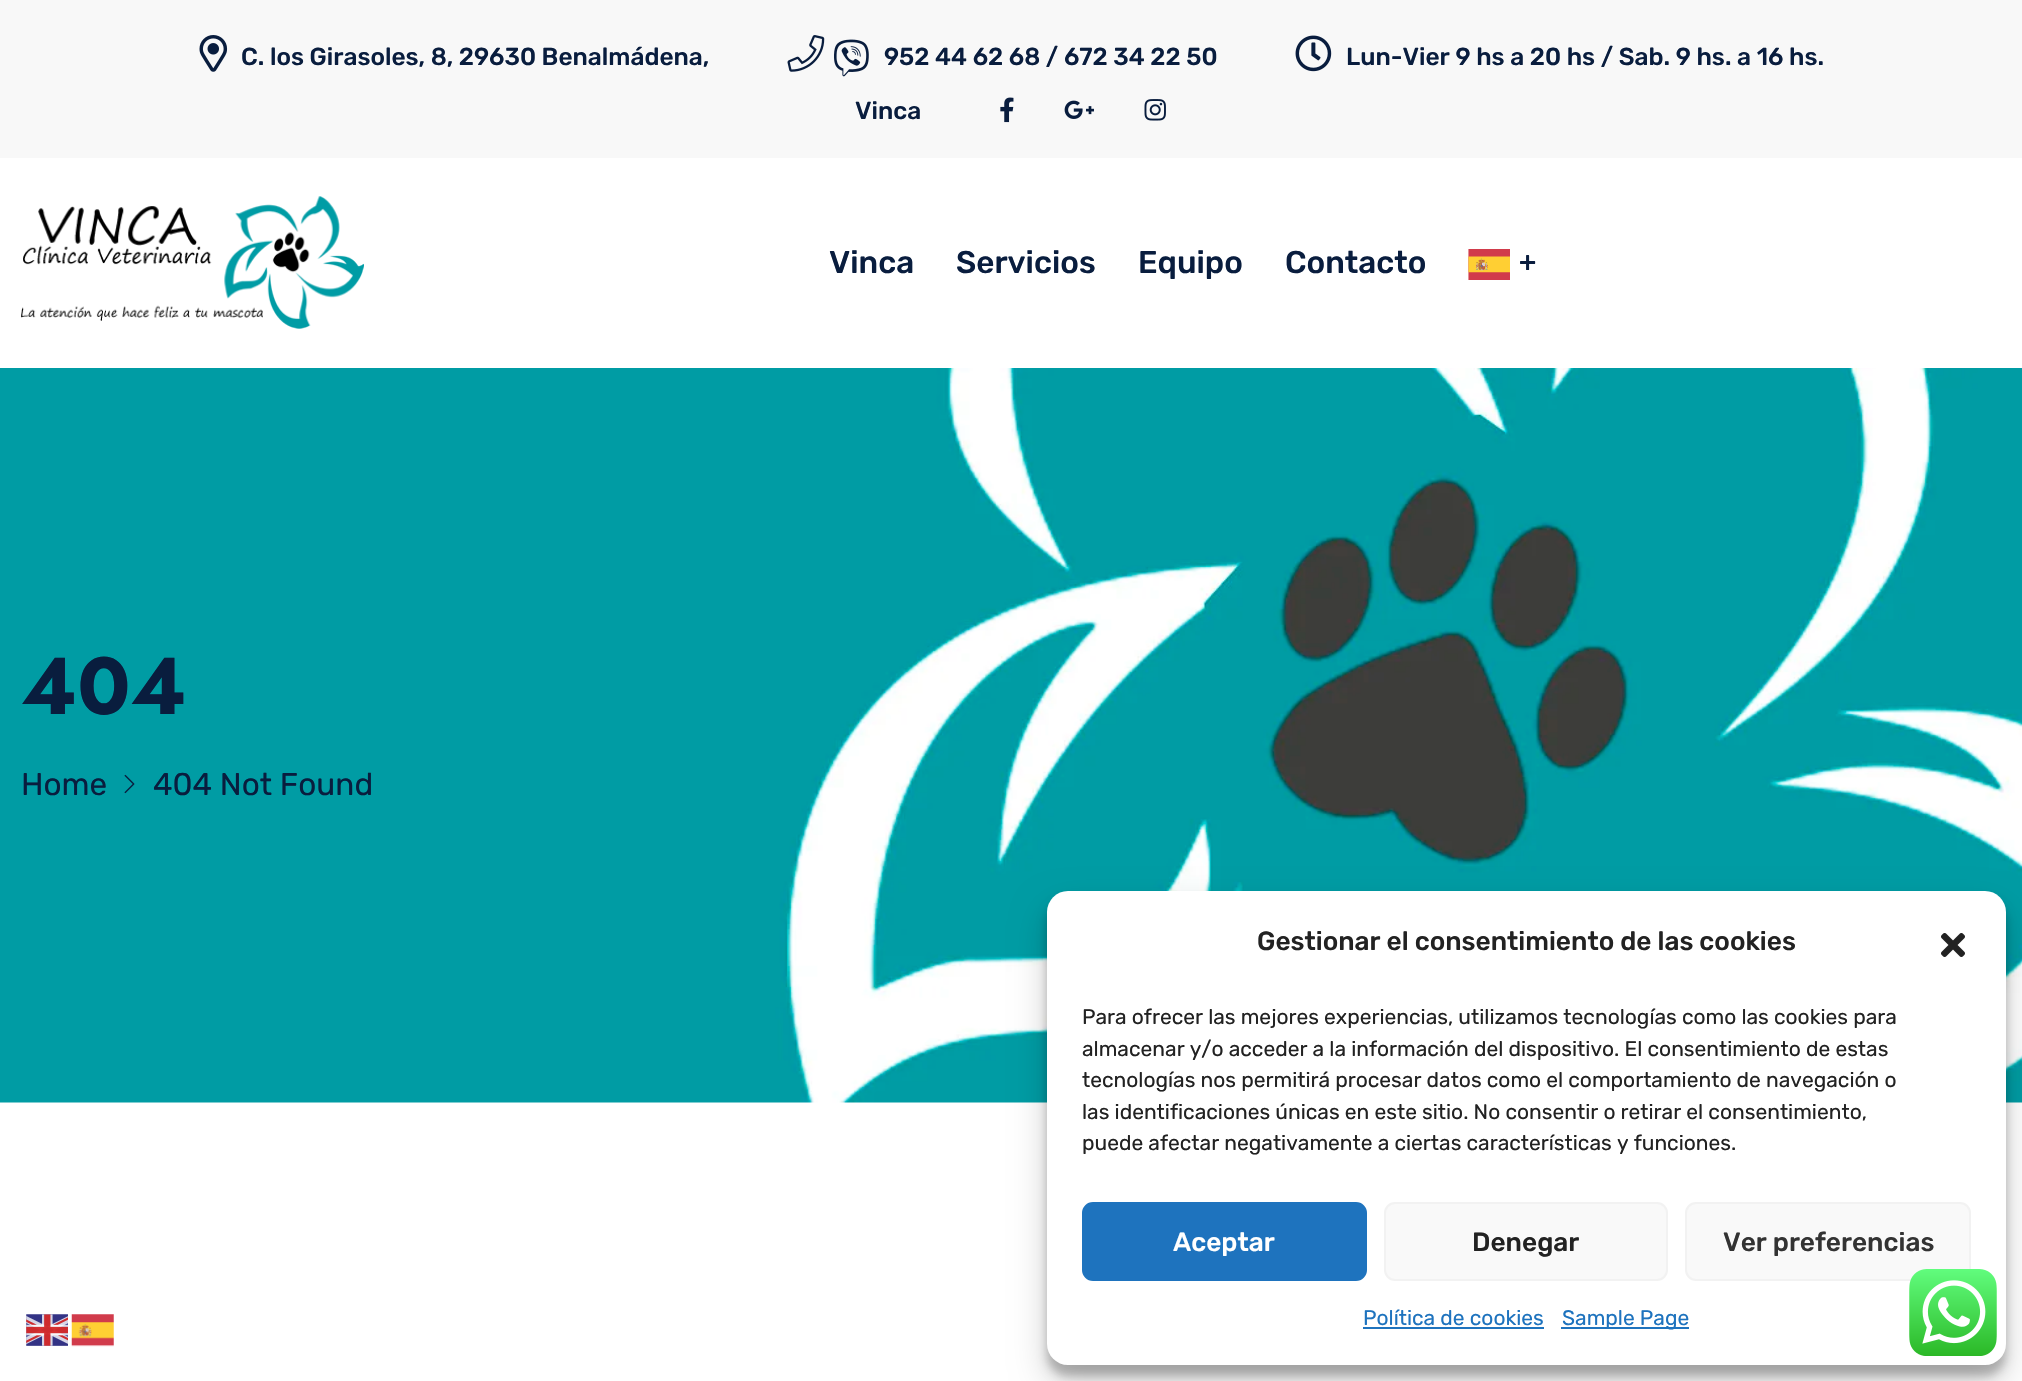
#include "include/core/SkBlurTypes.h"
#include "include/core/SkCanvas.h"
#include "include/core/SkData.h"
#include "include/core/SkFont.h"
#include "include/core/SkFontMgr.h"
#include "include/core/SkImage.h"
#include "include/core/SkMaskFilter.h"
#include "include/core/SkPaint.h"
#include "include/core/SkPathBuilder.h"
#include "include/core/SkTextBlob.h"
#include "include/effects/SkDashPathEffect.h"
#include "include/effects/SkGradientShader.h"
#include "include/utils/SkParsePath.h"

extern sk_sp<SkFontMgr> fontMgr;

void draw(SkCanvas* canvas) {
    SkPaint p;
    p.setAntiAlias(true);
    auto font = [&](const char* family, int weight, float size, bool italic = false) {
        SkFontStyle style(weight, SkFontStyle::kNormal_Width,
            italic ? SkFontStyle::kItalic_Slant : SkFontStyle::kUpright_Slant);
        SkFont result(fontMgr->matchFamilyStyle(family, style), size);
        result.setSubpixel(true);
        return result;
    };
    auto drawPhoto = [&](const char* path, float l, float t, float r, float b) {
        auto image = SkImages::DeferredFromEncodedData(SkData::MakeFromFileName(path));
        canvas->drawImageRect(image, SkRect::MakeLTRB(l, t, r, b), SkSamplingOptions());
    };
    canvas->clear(0xFFFFFFFF);
    p.setColor(0xFFF8F8F8);
    canvas->drawRect(SkRect::MakeLTRB(0, 0, 2022, 158), p);
    drawPhoto("media/1.png", 199, 35, 228, 72);
    auto font1 = font("Rubik", 500, 24.5f);
    p.setColor(0xFF091D3E);
    canvas->drawString("C. los Girasoles, 8, 29630 Benalmádena,", 241, 65, font1, p);
    drawPhoto("media/2.png", 787, 35, 825, 72);
    drawPhoto("media/3.png", 834, 39, 869, 77);
    canvas->drawString("952 44 62 68 / 672 34 22 50", 884, 65, font1, p);
    drawPhoto("media/4.png", 1295, 35, 1332, 72);
    canvas->drawString("Lun-Vier 9 hs a 20 hs / Sab. 9 hs. a 16 hs.", 1346, 65, font1, p);
    canvas->drawString("Vinca", 855, 119, font1, p);
    drawPhoto("media/5.png", 1000, 97, 1014, 123);
    drawPhoto("media/6.png", 1064, 100, 1094, 119);
    drawPhoto("media/7.png", 1144, 99, 1166, 121);
    drawPhoto("media/8.png", 21, 196, 364, 329);
    auto font2 = font("Rubik", 500, 31.5f);
    {
        const struct { const char* s; float x, y; } items[] = {
            {"Vinca", 829, 273},
            {"Servicios", 956, 273},
            {"Equipo", 1138, 273},
            {"Contacto", 1285, 273},
        };
        for (auto [s, x, y] : items) {
            canvas->drawString(s, x, y, font2, p);
        }
    }
    drawPhoto("media/9.png", 1468, 249, 1510, 280);
    auto font3 = font("Rubik", 500, 28);
    canvas->drawString("+", 1519, 271, font3, p);
    drawPhoto("media/10.png", 0, 368, 2022, 1103);
    auto font4 = font("Jost", 700, 80.5f);
    canvas->drawString("404", 21, 714, font4, p);
    auto font5 = font("Rubik", 400, 31.5f);
    canvas->drawString("Home", 21, 795, font5, p);
    drawPhoto("media/11.png", 124, 774, 135, 794);
    canvas->drawString("404 Not Found", 153, 795, font5, p);
    drawPhoto("media/12.png", 26, 1314, 68, 1346);
    drawPhoto("media/13.png", 71, 1314, 114, 1347);
    p.setColor(0x3B000000);
    p.setMaskFilter(SkMaskFilter::MakeBlur(kNormal_SkBlurStyle, 5));
    canvas->drawRoundRect(SkRect::MakeLTRB(1047, 901, 2006, 1376), 21, 21, p);
    p.setMaskFilter(nullptr);
    p.setColor(0x30000000);
    p.setMaskFilter(SkMaskFilter::MakeBlur(kNormal_SkBlurStyle, 17.5f));
    canvas->drawRoundRect(SkRect::MakeLTRB(1047, 908, 2006, 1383), 21, 21, p);
    p.setMaskFilter(nullptr);
    p.setColor(0xFFFFFFFF);
    canvas->drawRoundRect(SkRect::MakeLTRB(1047, 891, 2006, 1365), 21, 21, p);
    p.setColor(0xFFF9F9F9);
    canvas->drawRoundRect(SkRect::MakeLTRB(1686, 1203, 1970, 1280), 10, 10, p);
    p.setStyle(SkPaint::kStroke_Style);
    p.setStrokeWidth(2);
    p.setColor(0xFFF2F2F2);
    canvas->drawRoundRect(SkRect::MakeLTRB(1686, 1203, 1970, 1280), 10, 10, p);
    drawPhoto("media/14.png", 1909, 1269, 1997, 1356);
    auto font6 = font("Rubik", 500, 26.25f);
    p.setStyle(SkPaint::kFill_Style);
    p.setColor(0xFF222222);
    canvas->drawString("Gestionar el consentimiento de las cookies", 1257, 950, font6, p);
    drawPhoto("media/15.png", 1941, 933, 1965, 957);
    auto font7 = font("Rubik", 400, 21);
    {
        const struct { const char* s; float x, y; } items[] = {
            {"Para ofrecer las mejores experiencias, utilizamos tecnologías como las cookies para", 1082, 1024},
            {"almacenar y/o acceder a la información del dispositivo. El consentimiento de estas", 1082, 1056},
            {"tecnologías nos permitirá procesar datos como el comportamiento de navegación o", 1082, 1087},
            {"las identificaciones únicas en este sitio. No consentir o retirar el consentimiento,", 1082, 1119},
            {"puede afectar negativamente a ciertas características y funciones.", 1082, 1150},
        };
        for (auto [s, x, y] : items) {
            canvas->drawString(s, x, y, font7, p);
        }
    }
    p.setColor(0xFF1E73BE);
    canvas->drawRoundRect(SkRect::MakeLTRB(1083, 1203, 1366, 1280), 10, 10, p);
    p.setStyle(SkPaint::kStroke_Style);
    canvas->drawRoundRect(SkRect::MakeLTRB(1083, 1203, 1366, 1280), 10, 10, p);
    p.setStyle(SkPaint::kFill_Style);
    p.setColor(0xFFFFFFFF);
    canvas->drawString("Aceptar", 1173, 1251, font6, p);
    p.setColor(0xFFF9F9F9);
    canvas->drawRoundRect(SkRect::MakeLTRB(1385, 1203, 1667, 1280), 10, 10, p);
    p.setStyle(SkPaint::kStroke_Style);
    p.setColor(0xFFF2F2F2);
    canvas->drawRoundRect(SkRect::MakeLTRB(1385, 1203, 1667, 1280), 10, 10, p);
    p.setStyle(SkPaint::kFill_Style);
    p.setColor(0xFF222222);
    canvas->drawString("Denegar", 1472, 1251, font6, p);
    p.setColor(0xFF333333);
    canvas->drawString("Ver preferencias", 1723, 1251, font6, p);
    p.setColor(0xFF1E73BE);
    canvas->drawString("Política de cookies", 1363, 1325, font7, p);
    canvas->drawRect(SkRect::MakeLTRB(1363, 1327, 1544, 1329), p);
    canvas->drawRect(SkRect::MakeLTRB(1561, 1327, 1689, 1329), p);
    canvas->drawString("Sample Page", 1562, 1325, font7, p);
}
